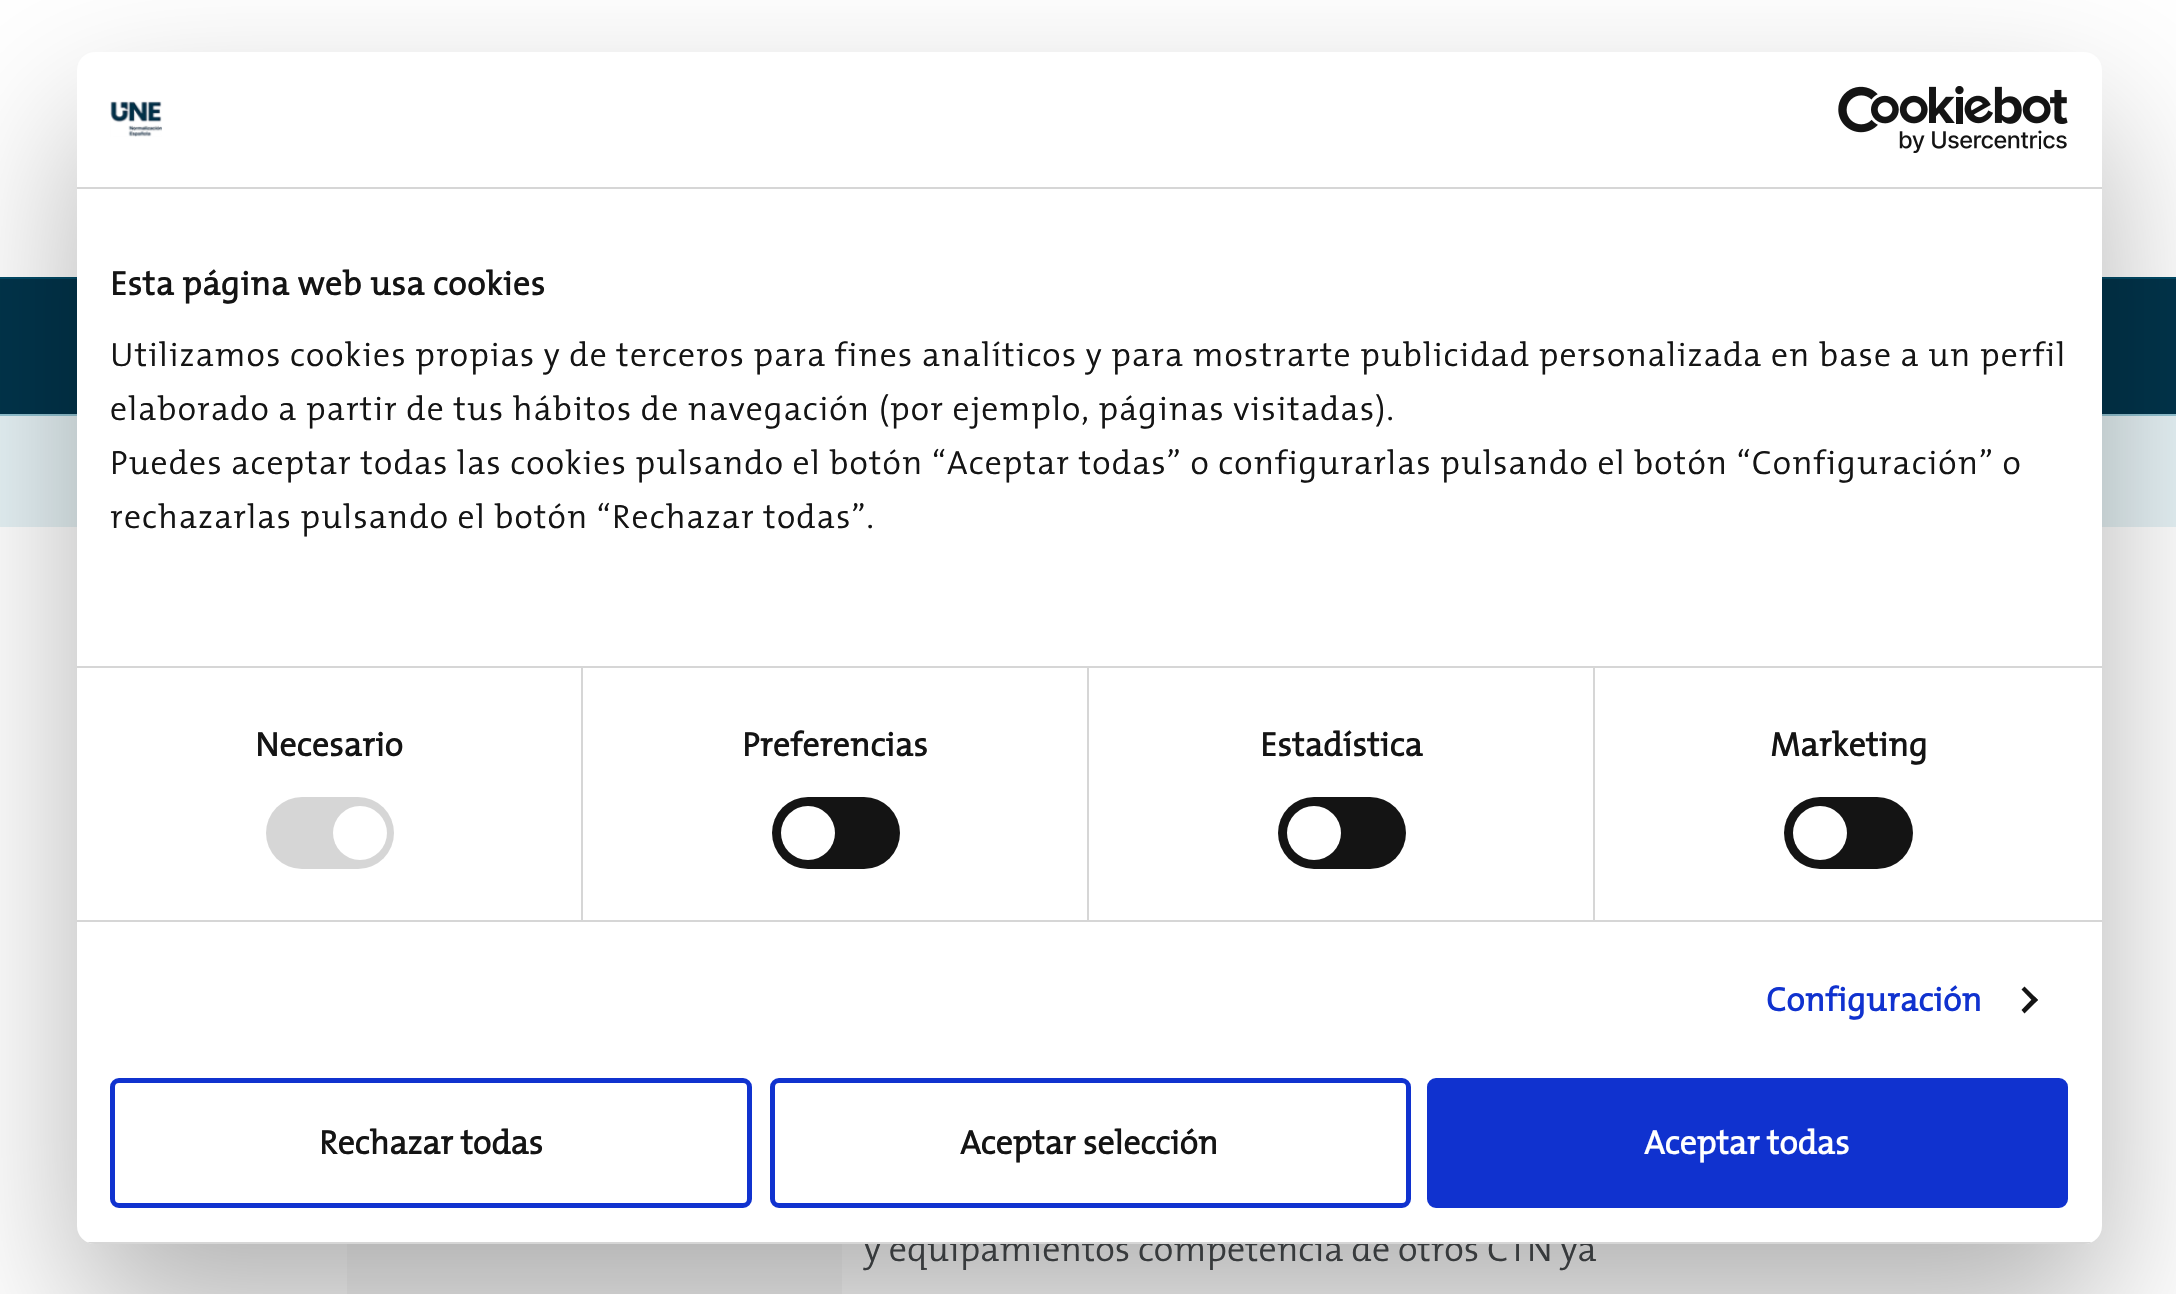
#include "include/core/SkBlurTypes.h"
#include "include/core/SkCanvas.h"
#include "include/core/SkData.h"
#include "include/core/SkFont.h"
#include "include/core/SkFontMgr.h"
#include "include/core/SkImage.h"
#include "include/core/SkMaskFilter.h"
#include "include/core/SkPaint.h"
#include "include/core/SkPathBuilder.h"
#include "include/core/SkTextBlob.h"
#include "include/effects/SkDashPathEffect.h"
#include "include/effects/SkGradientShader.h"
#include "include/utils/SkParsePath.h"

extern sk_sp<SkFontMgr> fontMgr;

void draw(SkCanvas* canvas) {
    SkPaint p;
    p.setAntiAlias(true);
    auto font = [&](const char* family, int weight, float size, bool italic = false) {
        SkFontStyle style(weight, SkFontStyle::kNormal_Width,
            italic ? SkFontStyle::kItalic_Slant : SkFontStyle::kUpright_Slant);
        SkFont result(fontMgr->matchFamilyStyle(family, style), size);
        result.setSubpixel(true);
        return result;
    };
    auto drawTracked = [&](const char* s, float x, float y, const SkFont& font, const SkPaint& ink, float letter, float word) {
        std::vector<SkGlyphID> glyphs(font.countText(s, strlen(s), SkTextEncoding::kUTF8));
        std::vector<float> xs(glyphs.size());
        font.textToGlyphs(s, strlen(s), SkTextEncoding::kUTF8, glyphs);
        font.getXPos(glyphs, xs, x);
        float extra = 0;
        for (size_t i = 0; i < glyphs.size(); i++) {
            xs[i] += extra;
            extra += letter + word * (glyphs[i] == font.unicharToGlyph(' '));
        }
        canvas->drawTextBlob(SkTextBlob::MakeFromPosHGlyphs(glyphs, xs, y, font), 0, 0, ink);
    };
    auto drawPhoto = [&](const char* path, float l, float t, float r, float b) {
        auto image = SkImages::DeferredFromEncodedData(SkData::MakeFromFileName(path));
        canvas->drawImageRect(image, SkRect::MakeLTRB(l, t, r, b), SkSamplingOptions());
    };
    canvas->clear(0xFFFFFFFF);
    {
        const struct { float l, t, r, b; SkColor color; } items[] = {
            {0, 279, 2176, 414, 0xFF01344B},
            {0, 277, 2176, 279, 0xFF014A66},
            {0, 416, 2176, 527, 0xFFE6F2F5},
            {0, 414, 2176, 416, 0xFF93C4D3},
            {347, 1244, 842, 1294, 0xFFF8F8F8},
        };
        for (auto [l, t, r, b, color] : items) {
            p.setColor(color);
            canvas->drawRect(SkRect::MakeLTRB(l, t, r, b), p);
        }
    }
    p.setColor(0x4D000000);
    p.setMaskFilter(SkMaskFilter::MakeBlur(kNormal_SkBlurStyle, 76.5f));
    canvas->drawRoundRect(SkRect::MakeLTRB(77, 124, 2102, 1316), 18, 18, p);
    p.setMaskFilter(nullptr);
    auto font1 = font("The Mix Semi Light", 300, 36);
    p.setColor(0xFF373A3C);
    canvas->drawString("y equipamientos competencia de otros CTN ya", 864, 1261, font1, p);
    p.setColor(0xFFFFFFFF);
    canvas->drawRoundRect(SkRect::MakeLTRB(77, 52, 2102, 1244), 18, 18, p);
    p.setColor(0xFFD6D6D6);
    canvas->drawRect(SkRect::MakeLTRB(77, 187, 2102, 189), p);
    drawPhoto("media/1.png", 110, 101, 162, 137);
    drawPhoto("media/2.png", 1838, 86, 2068, 153);
    canvas->drawRect(SkRect::MakeLTRB(77, 666, 2102, 668), p);
    auto font2 = font("The Mix Semi Light", 700, 33.75f);
    p.setColor(0xFF141414);
    drawTracked("Esta página web usa cookies", 110, 295, font2, p, 0.55f, 0);
    auto font3 = font("The Mix Semi Light", 300, 33.75f);
    {
        const struct { const char* s; float x, y; } items[] = {
            {"Utilizamos cookies propias y de terceros para fines analíticos y para mostrarte publicidad personalizada en base a un perfil", 110, 366},
            {"elaborado a partir de tus hábitos de navegación (por ejemplo, páginas visitadas).", 110, 420},
            {"Puedes aceptar todas las cookies pulsando el botón “Aceptar todas” o configurarlas pulsando el botón “Configuración” o", 110, 474},
            {"rechazarlas pulsando el botón “Rechazar todas”.", 110, 528},
        };
        for (auto [s, x, y] : items) {
            drawTracked(s, x, y, font3, p, 1.12f, 0);
        }
    }
    p.setColor(0xFFD6D6D6);
    canvas->drawRect(SkRect::MakeLTRB(77, 920, 2102, 922), p);
    canvas->drawRect(SkRect::MakeLTRB(581, 668, 583, 920), p);
    p.setColor(0xFF141414);
    drawTracked("Necesario", 255, 756, font2, p, 0.25f, 0);
    p.setColor(0xFFD6D6D6);
    canvas->drawRoundRect(SkRect::MakeLTRB(266, 797, 394, 869), 36, 36, p);
    p.setColor(0xFFFFFFFF);
    canvas->drawCircle(360, 833, 27, p);
    p.setColor(0xFFD6D6D6);
    canvas->drawRect(SkRect::MakeLTRB(1087, 668, 1089, 920), p);
    p.setColor(0xFF141414);
    drawTracked("Preferencias", 742, 756, font2, p, 0.25f, 0);
    canvas->drawRoundRect(SkRect::MakeLTRB(772, 797, 900, 869), 36, 36, p);
    p.setColor(0xFFFFFFFF);
    canvas->drawCircle(808, 833, 27, p);
    p.setColor(0xFFD6D6D6);
    canvas->drawRect(SkRect::MakeLTRB(1593, 668, 1595, 920), p);
    p.setColor(0xFF141414);
    drawTracked("Estadística", 1260, 756, font2, p, 0.25f, 0);
    canvas->drawRoundRect(SkRect::MakeLTRB(1278, 797, 1406, 869), 36, 36, p);
    p.setColor(0xFFFFFFFF);
    canvas->drawCircle(1314, 833, 27, p);
    p.setColor(0xFF141414);
    drawTracked("Marketing", 1770, 756, font2, p, 0.25f, 0);
    canvas->drawRoundRect(SkRect::MakeLTRB(1784, 797, 1913, 869), 36, 36, p);
    p.setColor(0xFFFFFFFF);
    canvas->drawCircle(1820, 833, 27, p);
    p.setColor(0xFF1032CF);
    drawTracked("Configuración", 1766, 1011, font2, p, 0.25f, 0);
    p.setColor(0xFF141414);
    canvas->drawPath(SkPathBuilder().moveTo(2024.5f, 986.5f).lineTo(2038, 1000).lineTo(2034.5f, 1003).lineTo(2021.5f, 989.5f).close().detach(), p);
    canvas->drawPath(SkPathBuilder().moveTo(2034.5f, 996.5f).lineTo(2038, 1000).lineTo(2024.5f, 1013.5f).lineTo(2021.5f, 1010).close().detach(), p);
    canvas->save();
    canvas->clipPath(SkPathBuilder().moveTo(95, 52).lineTo(2084, 52).cubicTo(2094, 52, 2102, 60, 2102, 70).lineTo(2102, 1226).cubicTo(2102, 1236, 2094, 1244, 2084, 1244).lineTo(95, 1244).cubicTo(85, 1244, 77, 1236, 77, 1226).lineTo(77, 70).cubicTo(77, 60, 85, 52, 95, 52).close().detach(), true);
    p.setColor(0xFFD6D6D6);
    canvas->drawRect(SkRect::MakeLTRB(87, 1242, 2092, 1244), p);
    canvas->restore();
    p.setStyle(SkPaint::kStroke_Style);
    p.setStrokeWidth(5);
    p.setColor(0xFF1032CF);
    canvas->drawRoundRect(SkRect::MakeLTRB(112.5f, 1080.5f, 749.5f, 1205.5f), 6.5f, 6.5f, p);
    p.setStyle(SkPaint::kFill_Style);
    p.setColor(0xFF141414);
    canvas->drawString("Rechazar todas", 319, 1154, font2, p);
    p.setStyle(SkPaint::kStroke_Style);
    p.setColor(0xFF1032CF);
    canvas->drawRoundRect(SkRect::MakeLTRB(772.5f, 1080.5f, 1408.5f, 1205.5f), 6.5f, 6.5f, p);
    p.setStyle(SkPaint::kFill_Style);
    p.setColor(0xFF141414);
    canvas->drawString("Aceptar selección", 960, 1154, font2, p);
    p.setColor(0xFF1032CF);
    canvas->drawRoundRect(SkRect::MakeLTRB(1429.5f, 1080.5f, 2065.5f, 1205.5f), 6.5f, 6.5f, p);
    p.setStyle(SkPaint::kStroke_Style);
    canvas->drawRoundRect(SkRect::MakeLTRB(1429.5f, 1080.5f, 2065.5f, 1205.5f), 6.5f, 6.5f, p);
    p.setStyle(SkPaint::kFill_Style);
    p.setColor(0xFFFFFFFF);
    canvas->drawString("Aceptar todas", 1644, 1154, font2, p);
}
